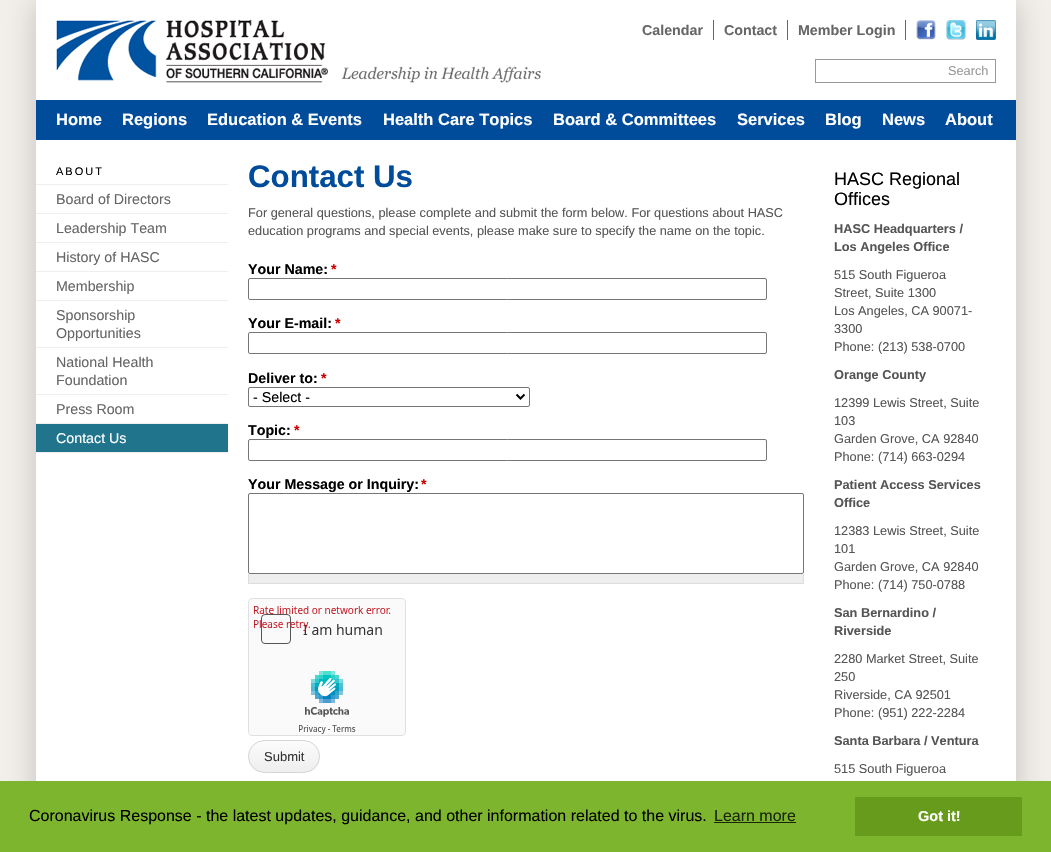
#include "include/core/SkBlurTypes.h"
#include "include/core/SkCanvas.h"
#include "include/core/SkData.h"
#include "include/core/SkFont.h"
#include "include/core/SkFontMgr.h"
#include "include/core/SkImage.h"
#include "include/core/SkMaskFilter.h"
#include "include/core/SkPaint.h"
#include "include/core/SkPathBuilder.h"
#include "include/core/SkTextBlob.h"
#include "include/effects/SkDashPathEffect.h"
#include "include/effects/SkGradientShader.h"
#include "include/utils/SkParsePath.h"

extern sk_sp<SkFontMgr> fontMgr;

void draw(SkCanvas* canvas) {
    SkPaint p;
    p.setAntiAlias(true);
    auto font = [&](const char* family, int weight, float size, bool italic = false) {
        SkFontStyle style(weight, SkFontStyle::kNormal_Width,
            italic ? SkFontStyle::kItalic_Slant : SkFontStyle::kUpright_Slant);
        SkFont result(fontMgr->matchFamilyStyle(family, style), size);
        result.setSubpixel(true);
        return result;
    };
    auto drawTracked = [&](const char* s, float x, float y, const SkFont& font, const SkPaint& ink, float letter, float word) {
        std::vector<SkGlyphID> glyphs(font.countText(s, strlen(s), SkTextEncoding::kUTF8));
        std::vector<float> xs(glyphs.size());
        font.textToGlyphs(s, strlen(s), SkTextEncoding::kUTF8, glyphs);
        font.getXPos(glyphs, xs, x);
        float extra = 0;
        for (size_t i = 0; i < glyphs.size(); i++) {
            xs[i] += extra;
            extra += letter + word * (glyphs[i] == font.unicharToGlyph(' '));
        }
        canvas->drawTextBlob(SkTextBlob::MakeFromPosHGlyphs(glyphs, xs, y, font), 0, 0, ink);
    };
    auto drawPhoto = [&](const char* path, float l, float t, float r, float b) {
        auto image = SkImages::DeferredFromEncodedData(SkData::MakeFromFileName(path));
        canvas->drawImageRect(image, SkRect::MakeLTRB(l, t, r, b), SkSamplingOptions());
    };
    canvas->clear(0xFFF3F0EC);
    p.setColor(0x33000000);
    p.setMaskFilter(SkMaskFilter::MakeBlur(kNormal_SkBlurStyle, 15));
    canvas->drawRect(SkRect::MakeLTRB(36, 0, 1016, 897), p);
    p.setMaskFilter(nullptr);
    p.setColor(0xFFFFFFFF);
    canvas->drawRect(SkRect::MakeLTRB(36, 0, 1016, 781), p);
    drawPhoto("media/1.png", 56, 19, 541, 83);
    p.setColor(0xFF666666);
    canvas->drawRect(SkRect::MakeLTRB(713, 20, 714, 40), p);
    auto font1 = font("Liberation Sans", 700, 14.25f);
    canvas->drawString("Calendar", 642, 35, font1, p);
    canvas->drawRect(SkRect::MakeLTRB(787, 20, 788, 40), p);
    canvas->drawString("Contact", 724, 35, font1, p);
    canvas->drawRect(SkRect::MakeLTRB(905, 20, 906, 40), p);
    canvas->drawString("Member Login", 798, 35, font1, p);
    drawPhoto("media/2.png", 916, 20, 936, 40);
    drawPhoto("media/3.png", 946, 20, 966, 40);
    drawPhoto("media/4.png", 976, 20, 996, 40);
    p.setColor(0xFF004C9B);
    canvas->drawRect(SkRect::MakeLTRB(36, 100, 1016, 140), p);
    auto font2 = font("Liberation Sans", 700, 16.5f);
    p.setColor(0xFFFFFFFF);
    {
        const struct { const char* s; float x, y; } items[] = {
            {"Home", 56, 125},
            {"Regions", 122, 125},
            {"Education & Events", 207, 125},
            {"Health Care Topics", 383, 125},
            {"Board & Committees", 553, 125},
            {"Services", 737, 125},
            {"Blog", 825, 125},
            {"News", 882, 125},
            {"About", 945, 125},
        };
        for (auto [s, x, y] : items) {
            canvas->drawString(s, x, y, font2, p);
        }
    }
    p.setColor(0xFFEEEEEE);
    canvas->drawRect(SkRect::MakeLTRB(36, 184, 228, 185), p);
    auto font3 = font("Liberation Sans", 400, 11);
    p.setColor(0xFF000000);
    drawTracked("ABOUT", 56, 175, font3, p, 2, 0);
    p.setColor(0xFFEEEEEE);
    canvas->drawRect(SkRect::MakeLTRB(36, 213, 228, 214), p);
    auto font4 = font("Liberation Sans", 400, 14.25f);
    p.setColor(0xFF666666);
    canvas->drawString("Board of Directors", 56, 204, font4, p);
    p.setColor(0xFFEEEEEE);
    canvas->drawRect(SkRect::MakeLTRB(36, 242, 228, 243), p);
    p.setColor(0xFF666666);
    canvas->drawString("Leadership Team", 56, 233, font4, p);
    p.setColor(0xFFEEEEEE);
    canvas->drawRect(SkRect::MakeLTRB(36, 271, 228, 272), p);
    p.setColor(0xFF666666);
    canvas->drawString("History of HASC", 56, 262, font4, p);
    p.setColor(0xFFEEEEEE);
    canvas->drawRect(SkRect::MakeLTRB(36, 300, 228, 301), p);
    p.setColor(0xFF666666);
    canvas->drawString("Membership", 56, 291, font4, p);
    p.setColor(0xFFEEEEEE);
    canvas->drawRect(SkRect::MakeLTRB(36, 347, 228, 348), p);
    p.setColor(0xFF666666);
    canvas->drawString("Sponsorship", 56, 320, font4, p);
    canvas->drawString("Opportunities", 56, 338, font4, p);
    p.setColor(0xFFEEEEEE);
    canvas->drawRect(SkRect::MakeLTRB(36, 394, 228, 395), p);
    p.setColor(0xFF666666);
    canvas->drawString("National Health", 56, 367, font4, p);
    canvas->drawString("Foundation", 56, 385, font4, p);
    p.setColor(0xFFEEEEEE);
    canvas->drawRect(SkRect::MakeLTRB(36, 423, 228, 424), p);
    p.setColor(0xFF666666);
    canvas->drawString("Press Room", 56, 414, font4, p);
    p.setColor(0xFF20748C);
    canvas->drawRect(SkRect::MakeLTRB(36, 424, 228, 452), p);
    p.setColor(0xFFEEEEEE);
    canvas->drawRect(SkRect::MakeLTRB(36, 452, 228, 453), p);
    p.setColor(0xFFFFFFFF);
    canvas->drawString("Contact Us", 56, 443, font4, p);
    auto font5 = font("Liberation Sans", 700, 31.25f);
    p.setColor(0xFF004C9B);
    canvas->drawString("Contact Us", 248, 187, font5, p);
    auto font6 = font("Liberation Sans", 400, 12.75f);
    p.setColor(0xFF555555);
    canvas->drawString("For general questions, please complete and submit the form below. For questions about HASC", 248, 217, font6, p);
    canvas->drawString("education programs and special events, please make sure to specify the name on the topic.", 248, 235, font6, p);
    p.setColor(0xFF000000);
    canvas->drawString("Your Name:", 248, 274, font1, p);
    p.setColor(0xFFCC0000);
    canvas->drawString("*", 331, 274, font1, p);
    p.setStyle(SkPaint::kStroke_Style);
    p.setStrokeWidth(1);
    p.setColor(0xFF767676);
    canvas->drawRoundRect(SkRect::MakeLTRB(248.5f, 278.5f, 766.5f, 299.5f), 1.5f, 1.5f, p);
    p.setStyle(SkPaint::kFill_Style);
    p.setColor(0xFF000000);
    canvas->drawString("Your E-mail:", 248, 328, font1, p);
    p.setColor(0xFFCC0000);
    canvas->drawString("*", 335, 328, font1, p);
    p.setStyle(SkPaint::kStroke_Style);
    p.setColor(0xFF767676);
    canvas->drawRoundRect(SkRect::MakeLTRB(248.5f, 332.5f, 766.5f, 353.5f), 1.5f, 1.5f, p);
    p.setStyle(SkPaint::kFill_Style);
    p.setColor(0xFF000000);
    canvas->drawString("Deliver to:", 248, 383, font1, p);
    p.setColor(0xFFCC0000);
    canvas->drawString("*", 321, 383, font1, p);
    p.setStyle(SkPaint::kStroke_Style);
    p.setColor(0xFF767676);
    canvas->drawRoundRect(SkRect::MakeLTRB(248.5f, 387.5f, 529.5f, 406.5f), 1.5f, 1.5f, p);
    p.setStrokeWidth(2);
    p.setColor(0xFF000000);
    canvas->drawPath(SkPathBuilder().moveTo(516.5f, 394.5f).lineTo(520.5f, 398.5f).lineTo(524.5f, 394.5f).detach(), p);
    p.setStyle(SkPaint::kFill_Style);
    canvas->drawString("- Select -", 253, 402, font4, p);
    canvas->drawString("Topic:", 248, 435, font1, p);
    p.setColor(0xFFCC0000);
    canvas->drawString("*", 294, 435, font1, p);
    p.setStyle(SkPaint::kStroke_Style);
    p.setStrokeWidth(1);
    p.setColor(0xFF767676);
    canvas->drawRoundRect(SkRect::MakeLTRB(248.5f, 439.5f, 766.5f, 460.5f), 1.5f, 1.5f, p);
    p.setStyle(SkPaint::kFill_Style);
    p.setColor(0xFF000000);
    canvas->drawString("Your Message or Inquiry:", 248, 489, font1, p);
    p.setColor(0xFFCC0000);
    canvas->drawString("*", 421, 489, font1, p);
    p.setStyle(SkPaint::kStroke_Style);
    p.setColor(0xFF767676);
    canvas->drawRoundRect(SkRect::MakeLTRB(248.5f, 493.5f, 803.5f, 573.5f), 1.5f, 1.5f, p);
    p.setStyle(SkPaint::kFill_Style);
    {
        const struct { float l, t, r, b; SkColor color; } items[] = {
            {249, 574, 803, 583, 0xFFEEEEEE},
            {803, 574, 804, 584, 0xFFDDDDDD},
            {248, 583, 804, 584, 0xFFDDDDDD},
            {248, 574, 249, 584, 0xFFDDDDDD},
        };
        for (auto [l, t, r, b, color] : items) {
            p.setColor(color);
            canvas->drawRect(SkRect::MakeLTRB(l, t, r, b), p);
        }
    }
    drawPhoto("media/5.png", 248, 598, 406, 736);
    canvas->save();
    canvas->clipPath(SkPathBuilder().moveTo(264.5f, 740).lineTo(303.5f, 740).cubicTo(312.5f, 740, 320, 747.5f, 320, 756.5f).cubicTo(320, 765.5f, 312.5f, 773, 303.5f, 773).lineTo(264.5f, 773).cubicTo(255.5f, 773, 248, 765.5f, 248, 756.5f).cubicTo(248, 747.5f, 255.5f, 740, 264.5f, 740).close().detach(), true);
    {
        const SkColor colors[] = {0xFFFCFCFC, 0xFFEEEEEE};
        const float stops[] = {0, 1};
        const SkPoint ends[] = {{284, 741}, {284, 772}};
        p.setShader(SkGradientShader::MakeLinear(ends, colors, stops, 2, SkTileMode::kClamp));
        p.setAlpha(255);
    }
    canvas->drawRect(SkRect::MakeLTRB(248, 741, 320, 772), p);
    canvas->restore();
    p.setStyle(SkPaint::kStroke_Style);
    p.setShader(nullptr);
    p.setColor(0xFFD5D5D5);
    canvas->drawRoundRect(SkRect::MakeLTRB(248.5f, 740.5f, 319.5f, 772.5f), 16, 16, p);
    auto font7 = font("Liberation Sans", 400, 13);
    p.setStyle(SkPaint::kFill_Style);
    p.setColor(0xFF333333);
    canvas->drawString("Submit", 264, 761, font7, p);
    auto font8 = font("Liberation Sans", 400, 18);
    p.setColor(0xFF000000);
    canvas->drawString("HASC Regional", 834, 185, font8, p);
    canvas->drawString("Offices", 834, 205, font8, p);
    auto font9 = font("Liberation Sans", 700, 12.75f);
    p.setColor(0xFF555555);
    canvas->drawString("HASC Headquarters /", 834, 233, font9, p);
    canvas->drawString("Los Angeles Office", 834, 251, font9, p);
    {
        const struct { const char* s; float x, y; } items[] = {
            {"515 South Figueroa", 834, 279},
            {"Street, Suite 1300", 834, 297},
            {"Los Angeles, CA 90071-", 834, 315},
            {"3300", 834, 333},
            {"Phone: (213) 538-0700", 834, 351},
        };
        for (auto [s, x, y] : items) {
            canvas->drawString(s, x, y, font6, p);
        }
    }
    canvas->drawString("Orange County", 834, 379, font9, p);
    {
        const struct { const char* s; float x, y; } items[] = {
            {"12399 Lewis Street, Suite", 834, 407},
            {"103", 834, 425},
            {"Garden Grove, CA 92840", 834, 443},
            {"Phone: (714) 663-0294", 834, 461},
        };
        for (auto [s, x, y] : items) {
            canvas->drawString(s, x, y, font6, p);
        }
    }
    canvas->drawString("Patient Access Services", 834, 489, font9, p);
    canvas->drawString("Office", 834, 507, font9, p);
    {
        const struct { const char* s; float x, y; } items[] = {
            {"12383 Lewis Street, Suite", 834, 535},
            {"101", 834, 553},
            {"Garden Grove, CA 92840", 834, 571},
            {"Phone: (714) 750-0788", 834, 589},
        };
        for (auto [s, x, y] : items) {
            canvas->drawString(s, x, y, font6, p);
        }
    }
    canvas->drawString("San Bernardino /", 834, 617, font9, p);
    canvas->drawString("Riverside", 834, 635, font9, p);
    {
        const struct { const char* s; float x, y; } items[] = {
            {"2280 Market Street, Suite", 834, 663},
            {"250", 834, 681},
            {"Riverside, CA 92501", 834, 699},
            {"Phone: (951) 222-2284", 834, 717},
        };
        for (auto [s, x, y] : items) {
            canvas->drawString(s, x, y, font6, p);
        }
    }
    canvas->drawString("Santa Barbara / Ventura", 834, 745, font9, p);
    canvas->drawString("515 South Figueroa", 834, 773, font6, p);
    p.setStyle(SkPaint::kStroke_Style);
    p.setColor(0xFF999999);
    canvas->drawRect(SkRect::MakeLTRB(815.5f, 59.5f, 995.5f, 82.5f), p);
    p.setStyle(SkPaint::kFill_Style);
    canvas->drawString("Search", 948, 75, font6, p);
    p.setColor(0xFF7DB62E);
    canvas->drawRect(SkRect::MakeLTRB(0, 781, 1051, 852), p);
    auto font10 = font("Liberation Sans", 400, 16);
    p.setColor(0xFF000000);
    canvas->drawString("Coronavirus Response - the latest updates, guidance, and other information related to the virus.", 29, 821, font10, p);
    p.setColor(0xFF192409);
    canvas->drawString("Learn more", 714, 821, font10, p);
    canvas->drawRect(SkRect::MakeLTRB(714, 822, 796, 823), p);
    p.setColor(0xFF679B1B);
    canvas->drawRect(SkRect::MakeLTRB(855, 797, 1022, 836), p);
    auto font11 = font("Liberation Sans", 700, 14.5f);
    p.setColor(0xFFFFFFFF);
    canvas->drawString("Got it!", 918, 821, font11, p);
}
